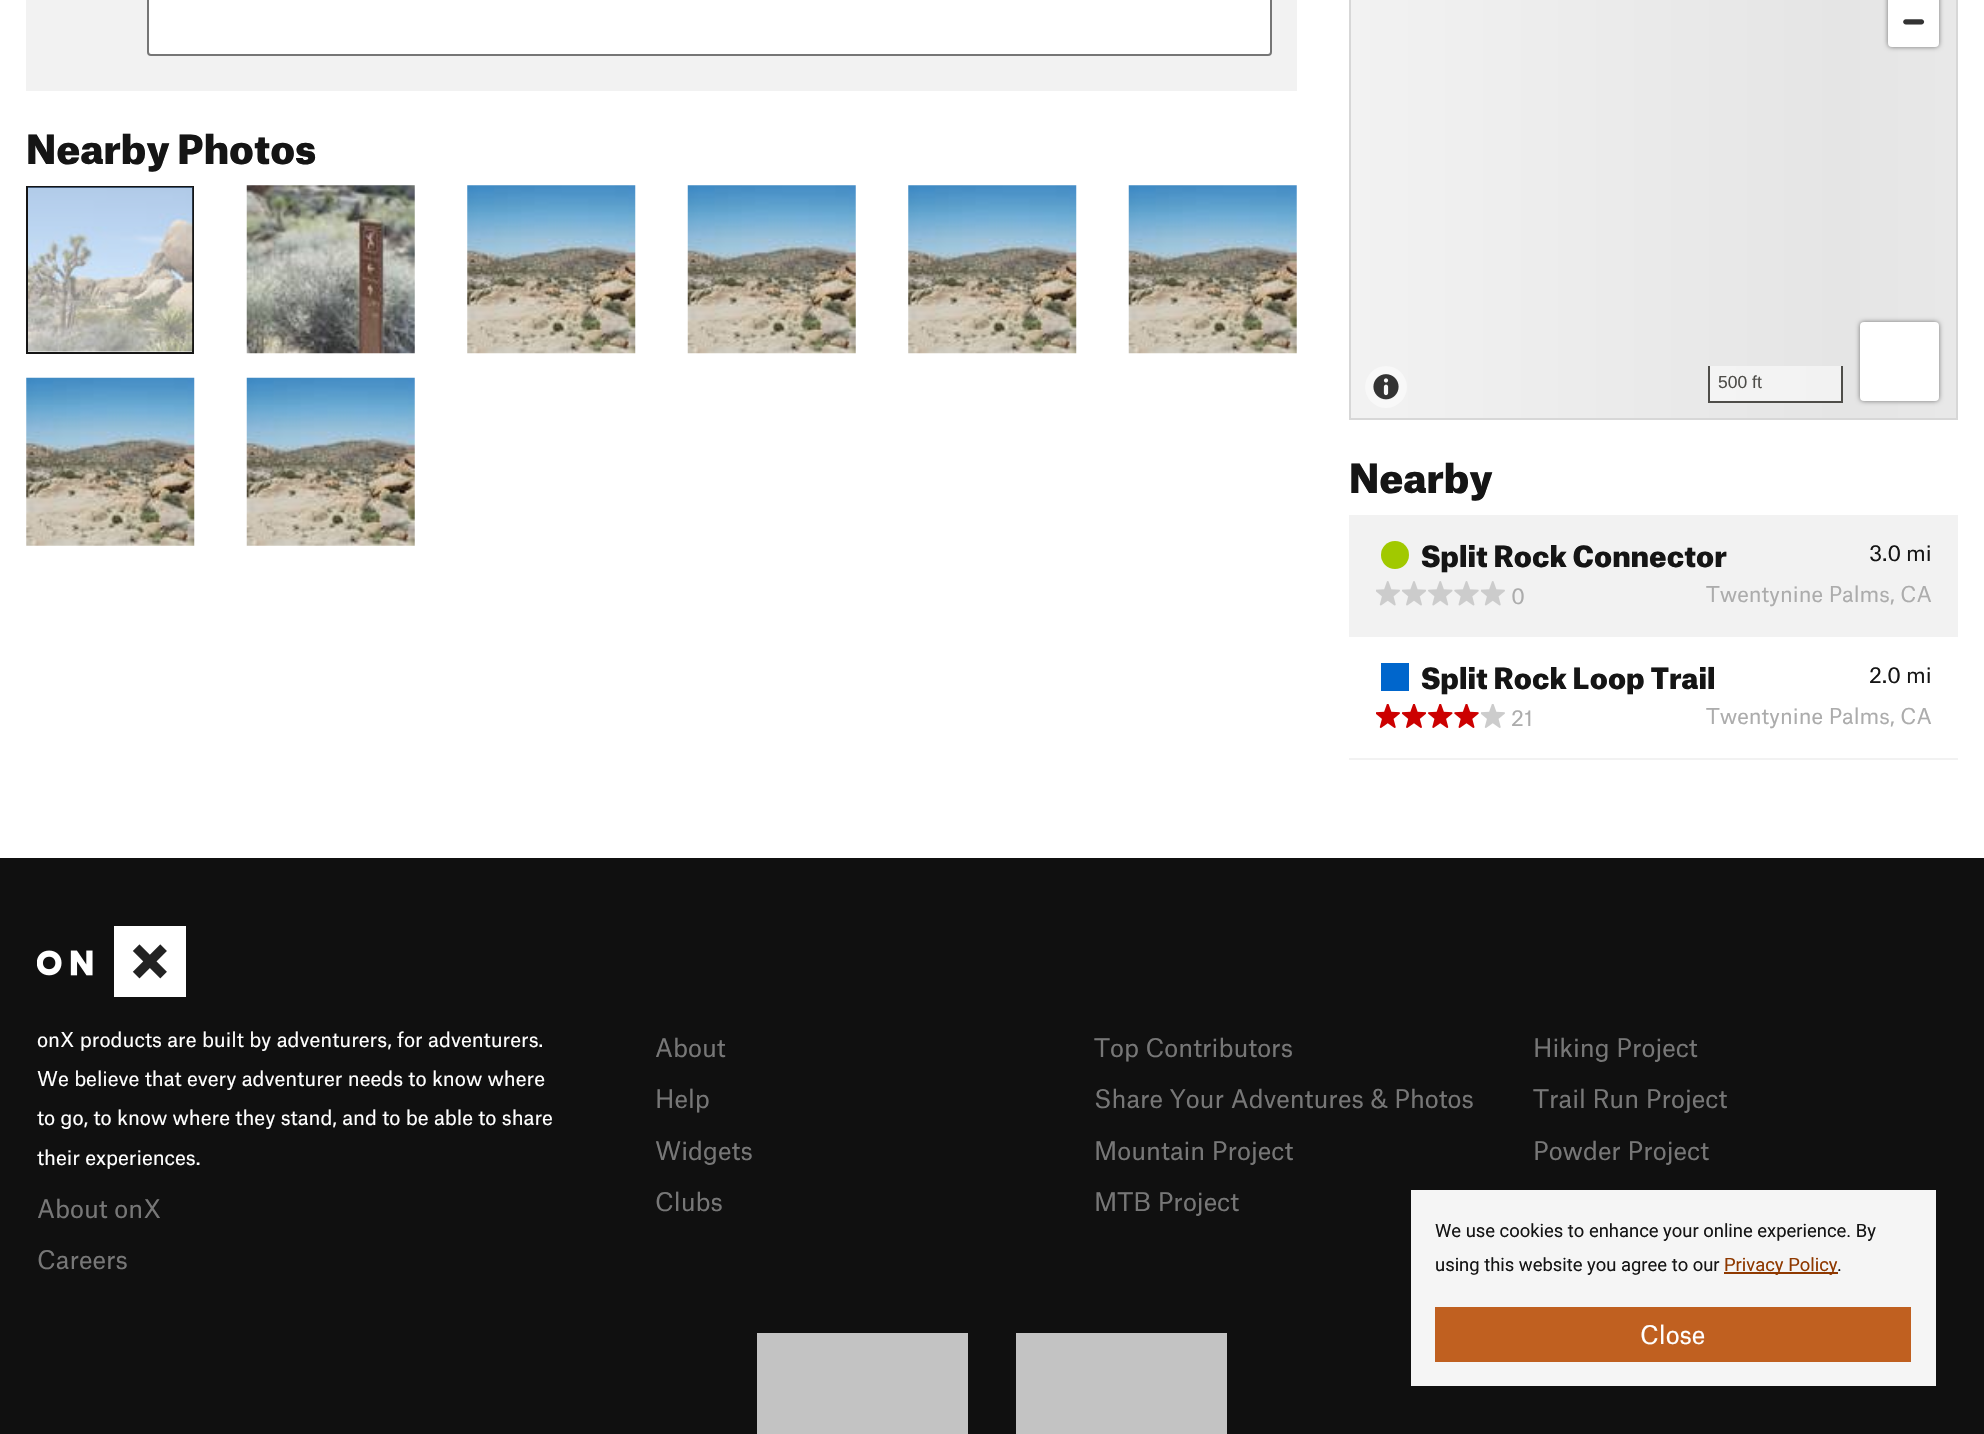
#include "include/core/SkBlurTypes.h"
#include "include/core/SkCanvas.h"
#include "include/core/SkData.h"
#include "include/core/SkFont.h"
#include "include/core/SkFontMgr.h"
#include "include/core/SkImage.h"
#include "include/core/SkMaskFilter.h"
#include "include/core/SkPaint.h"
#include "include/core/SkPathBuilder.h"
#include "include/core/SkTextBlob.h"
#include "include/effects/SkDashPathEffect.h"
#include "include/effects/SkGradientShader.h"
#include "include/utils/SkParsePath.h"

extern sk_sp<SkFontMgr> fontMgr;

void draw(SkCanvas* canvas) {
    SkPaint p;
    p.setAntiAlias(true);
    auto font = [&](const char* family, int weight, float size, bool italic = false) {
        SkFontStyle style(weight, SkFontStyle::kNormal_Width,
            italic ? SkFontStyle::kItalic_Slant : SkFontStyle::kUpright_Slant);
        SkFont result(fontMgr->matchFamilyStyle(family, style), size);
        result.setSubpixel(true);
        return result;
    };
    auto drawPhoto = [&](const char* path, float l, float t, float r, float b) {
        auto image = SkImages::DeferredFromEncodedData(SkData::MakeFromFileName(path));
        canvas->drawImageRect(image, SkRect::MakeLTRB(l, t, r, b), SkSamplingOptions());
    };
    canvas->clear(0xFFFFFFFF);
    p.setColor(0xFFF2F2F2);
    canvas->drawRect(SkRect::MakeLTRB(26, 0, 1297, 91), p);
    p.setColor(0xFFFFFFFF);
    canvas->drawRoundRect(SkRect::MakeLTRB(148, -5, 1271, 55), 3, 3, p);
    p.setStyle(SkPaint::kStroke_Style);
    p.setStrokeWidth(2);
    p.setColor(0xFF767676);
    canvas->drawRoundRect(SkRect::MakeLTRB(148, -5, 1271, 55), 3, 3, p);
    auto font1 = font("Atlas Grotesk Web", 900, 38.5f);
    p.setStyle(SkPaint::kFill_Style);
    p.setColor(0xFF151515);
    canvas->drawString("Nearby Photos", 26, 164, font1, p);
    p.setStyle(SkPaint::kStroke_Style);
    canvas->drawRect(SkRect::MakeLTRB(27, 187, 193, 353), p);
    drawPhoto("media/1.png", 28, 187, 193, 352);
    drawPhoto("media/2.png", 246, 185, 415, 354);
    drawPhoto("media/3.png", 467, 185, 636, 354);
    drawPhoto("media/4.png", 687, 185, 856, 354);
    drawPhoto("media/5.png", 908, 185, 1077, 354);
    drawPhoto("media/4.png", 1128, 185, 1297, 354);
    drawPhoto("media/6.png", 26, 377, 195, 546);
    drawPhoto("media/7.png", 246, 377, 415, 546);
    p.setStyle(SkPaint::kFill_Style);
    {
        const SkColor colors[] = {0xFFF2F2F2, 0xFFE5E5E5, 0xFFF2F2F2, 0xFFF2F2F2};
        const float stops[] = {0, 0.2f, 0.4f, 1};
        const SkPoint ends[] = {{1351, 105}, {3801, 105}};
        p.setShader(SkGradientShader::MakeLinear(ends, colors, stops, 4, SkTileMode::kClamp));
        p.setAlpha(255);
    }
    canvas->drawRect(SkRect::MakeLTRB(1351, 0, 1956, 418), p);
    {
        const SkColor colors[] = {0xFFF9F9F9, 0xFFF2F2F2, 0xFFF9F9F9, 0xFFF9F9F9};
        const float stops[] = {0, 0.2f, 0.4f, 1};
        const SkPoint ends[] = {{1351, 105}, {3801, 105}};
        p.setShader(SkGradientShader::MakeLinear(ends, colors, stops, 4, SkTileMode::kClamp));
        p.setAlpha(255);
    }
    canvas->drawRect(SkRect::MakeLTRB(1710, 366, 1841, 401), p);
    p.setStyle(SkPaint::kStroke_Style);
    p.setShader(nullptr);
    p.setColor(0xFFD7D7D7);
    canvas->drawRect(SkRect::MakeLTRB(1350, -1, 1957, 419), p);
    p.setStyle(SkPaint::kFill_Style);
    p.setColor(0xFFF8F8F8);
    canvas->drawCircle(1386, 387, 21, p);
    drawPhoto("media/8.png", 1373, 374, 1399, 400);
    p.setColor(0x80000000);
    p.setMaskFilter(SkMaskFilter::MakeBlur(kNormal_SkBlurStyle, 2.5f));
    canvas->drawRoundRect(SkRect::MakeLTRB(1888, -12, 1939, 47), 4, 4, p);
    p.setMaskFilter(nullptr);
    p.setColor(0xFFFFFFFF);
    canvas->drawRoundRect(SkRect::MakeLTRB(1888, -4, 1939, 47), 4, 4, p);
    drawPhoto("media/9.png", 1903, 19, 1925, 25);
    {
        const struct { float l, t, r, b; SkColor color; } items[] = {
            {1841, 366, 1843, 403, 0xFF4E4D49},
            {1708, 401, 1843, 403, 0xFF4E4D49},
            {1708, 366, 1710, 403, 0xFF4E4D49},
        };
        for (auto [l, t, r, b, color] : items) {
            p.setColor(color);
            canvas->drawRect(SkRect::MakeLTRB(l, t, r, b), p);
        }
    }
    auto font2 = font("Liberation Sans", 400, 17.5f);
    canvas->drawString("500 ft", 1718, 388, font2, p);
    p.setColor(0x80000000);
    p.setMaskFilter(SkMaskFilter::MakeBlur(kNormal_SkBlurStyle, 2.5f));
    canvas->drawRoundRect(SkRect::MakeLTRB(1860, 322, 1939, 401), 4, 4, p);
    p.setMaskFilter(nullptr);
    p.setColor(0xFFFFFFFF);
    canvas->drawRoundRect(SkRect::MakeLTRB(1860, 322, 1939, 401), 4, 4, p);
    p.setColor(0xFF151515);
    canvas->drawString("Nearby", 1349, 493, font1, p);
    p.setColor(0xFFF2F2F2);
    canvas->drawRect(SkRect::MakeLTRB(1349, 758, 1958, 760), p);
    canvas->drawRect(SkRect::MakeLTRB(1349, 515, 1958, 637), p);
    auto font3 = font("Atlas Grotesk Web", 900, 28);
    p.setColor(0xFF151515);
    canvas->drawString("Split Rock Connector", 1421, 567, font3, p);
    p.setColor(0xFFA1C900);
    canvas->drawCircle(1395, 555, 14, p);
    auto font4 = font("Atlas Grotesk Web", 400, 21);
    p.setColor(0xFF151515);
    canvas->drawString("3.0", 1869, 561, font4, p);
    canvas->drawString("mi", 1906, 561, font4, p);
    drawPhoto("media/10.png", 1376, 581, 1400, 606);
    drawPhoto("media/11.png", 1402, 581, 1426, 606);
    drawPhoto("media/12.png", 1428, 581, 1453, 606);
    drawPhoto("media/13.png", 1454, 581, 1479, 606);
    drawPhoto("media/10.png", 1481, 581, 1505, 606);
    p.setColor(0xFFACACAC);
    canvas->drawString("0", 1511, 604, font4, p);
    canvas->drawString("Twentynine Palms, CA", 1706, 602, font4, p);
    p.setColor(0xFF151515);
    canvas->drawString("Split Rock Loop Trail", 1421, 689, font3, p);
    p.setColor(0xFF0066CC);
    canvas->drawRect(SkRect::MakeLTRB(1381, 663, 1409, 691), p);
    p.setColor(0xFF151515);
    canvas->drawString("2.0", 1869, 683, font4, p);
    canvas->drawString("mi", 1906, 683, font4, p);
    drawPhoto("media/14.png", 1376, 704, 1400, 728);
    drawPhoto("media/15.png", 1402, 704, 1426, 728);
    drawPhoto("media/16.png", 1428, 704, 1453, 728);
    drawPhoto("media/17.png", 1454, 704, 1479, 728);
    drawPhoto("media/18.png", 1481, 704, 1505, 728);
    p.setColor(0xFFACACAC);
    canvas->drawString("21", 1511, 726, font4, p);
    canvas->drawString("Twentynine Palms, CA", 1706, 724, font4, p);
    p.setColor(0xFF101010);
    canvas->drawRect(SkRect::MakeLTRB(0, 858, 1984, 1434), p);
    drawPhoto("media/19.png", 37, 926, 186, 997);
    auto font5 = font("Atlas Grotesk Web", 400, 19.6f);
    p.setColor(0xFFFFFFFF);
    {
        const struct { const char* s; float x, y; } items[] = {
            {"onX products are built by adventurers, for adventurers.", 37, 1047},
            {"We believe that every adventurer needs to know where", 37, 1086},
            {"to go, to know where they stand, and to be able to share", 37, 1125},
            {"their experiences.", 37, 1165},
        };
        for (auto [s, x, y] : items) {
            canvas->drawString(s, x, y, font5, p);
        }
    }
    auto font6 = font("Atlas Grotesk Web", 400, 24.5f);
    p.setColor(0xFF777777);
    {
        const struct { const char* s; float x, y; } items[] = {
            {"About onX", 37, 1218},
            {"Careers", 37, 1269},
            {"About", 655, 1057},
            {"Top Contributors", 1094, 1057},
            {"Hiking Project", 1533, 1057},
            {"Help", 655, 1108},
            {"Share Your Adventures & Photos", 1094, 1108},
            {"Trail Run Project", 1533, 1108},
            {"Widgets", 655, 1160},
            {"Mountain Project", 1094, 1160},
            {"Powder Project", 1533, 1160},
            {"Clubs", 655, 1211},
            {"MTB Project", 1094, 1211},
        };
        for (auto [s, x, y] : items) {
            canvas->drawString(s, x, y, font6, p);
        }
    }
    {
        const struct { float l, t, r, b; SkColor color; } items[] = {
            {757, 1333, 968, 1434, 0xFFC3C3C3},
            {1016, 1333, 1227, 1434, 0xFFC3C3C3},
            {1411, 1190, 1936, 1386, 0xFFF5F5F5},
        };
        for (auto [l, t, r, b, color] : items) {
            p.setColor(color);
            canvas->drawRect(SkRect::MakeLTRB(l, t, r, b), p);
        }
    }
    auto font7 = font("Roboto", 400, 18.4f);
    p.setColor(0xFF151515);
    canvas->drawString("We use cookies to enhance your online experience. By", 1435, 1237, font7, p);
    canvas->drawString("using this website you agree to our", 1435, 1271, font7, p);
    p.setColor(0xFF8F3900);
    canvas->drawRect(SkRect::MakeLTRB(1724, 1272, 1838, 1274), p);
    canvas->drawString("Privacy Policy", 1724, 1271, font7, p);
    p.setColor(0xFF151515);
    canvas->drawString(".", 1837, 1271, font7, p);
    p.setColor(0xFFC06020);
    canvas->drawRect(SkRect::MakeLTRB(1435, 1307, 1911, 1362), p);
    p.setColor(0xFFFFFFFF);
    canvas->drawString("Close", 1640, 1344, font6, p);
}
